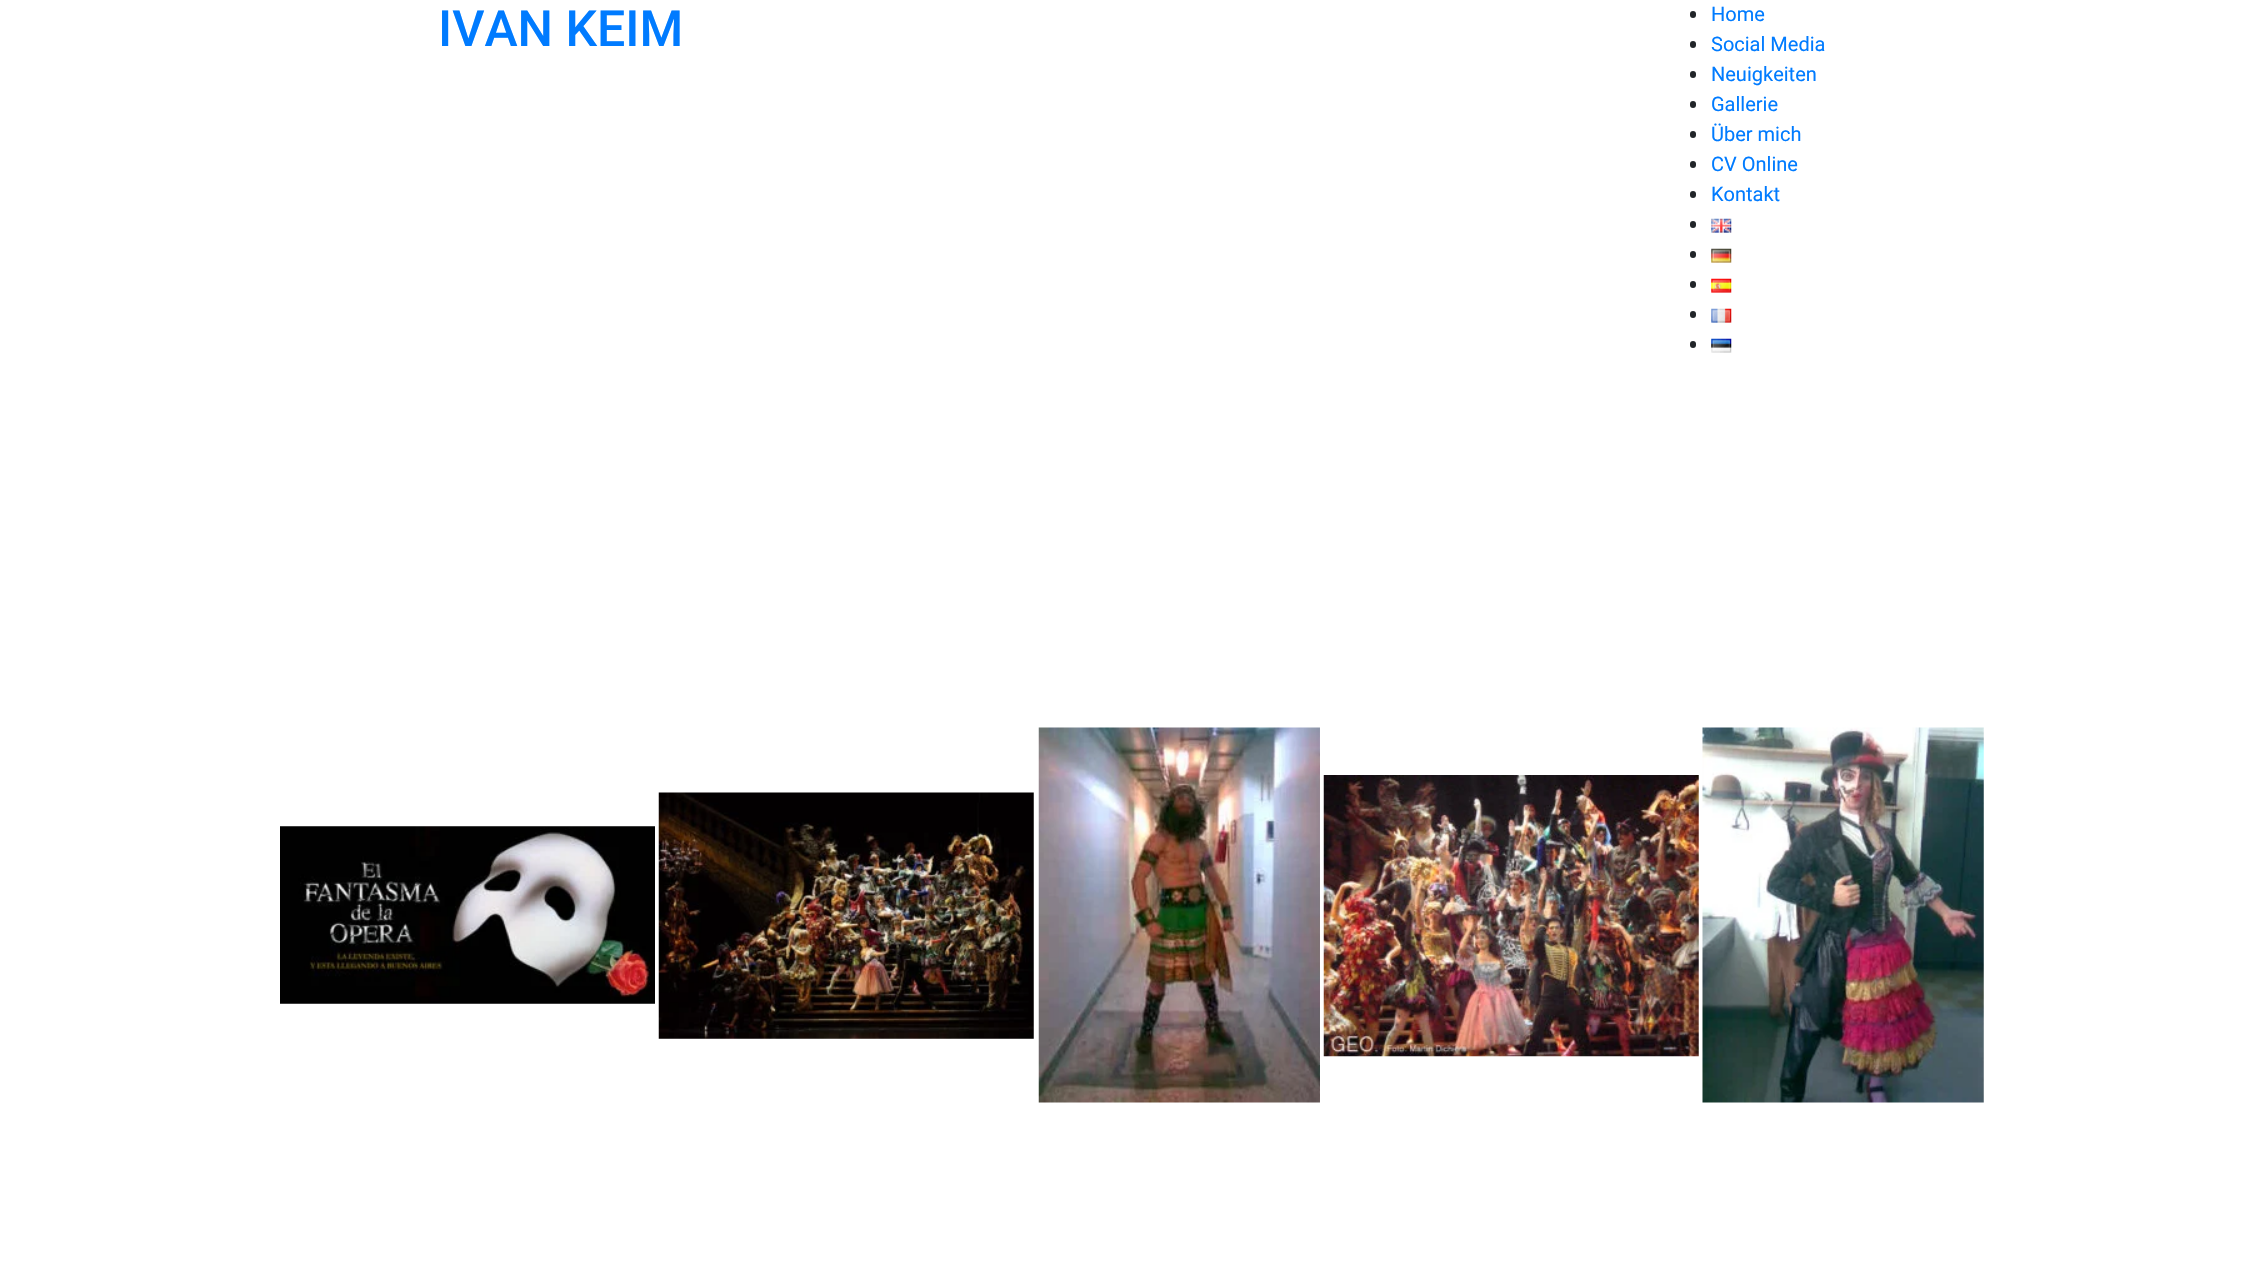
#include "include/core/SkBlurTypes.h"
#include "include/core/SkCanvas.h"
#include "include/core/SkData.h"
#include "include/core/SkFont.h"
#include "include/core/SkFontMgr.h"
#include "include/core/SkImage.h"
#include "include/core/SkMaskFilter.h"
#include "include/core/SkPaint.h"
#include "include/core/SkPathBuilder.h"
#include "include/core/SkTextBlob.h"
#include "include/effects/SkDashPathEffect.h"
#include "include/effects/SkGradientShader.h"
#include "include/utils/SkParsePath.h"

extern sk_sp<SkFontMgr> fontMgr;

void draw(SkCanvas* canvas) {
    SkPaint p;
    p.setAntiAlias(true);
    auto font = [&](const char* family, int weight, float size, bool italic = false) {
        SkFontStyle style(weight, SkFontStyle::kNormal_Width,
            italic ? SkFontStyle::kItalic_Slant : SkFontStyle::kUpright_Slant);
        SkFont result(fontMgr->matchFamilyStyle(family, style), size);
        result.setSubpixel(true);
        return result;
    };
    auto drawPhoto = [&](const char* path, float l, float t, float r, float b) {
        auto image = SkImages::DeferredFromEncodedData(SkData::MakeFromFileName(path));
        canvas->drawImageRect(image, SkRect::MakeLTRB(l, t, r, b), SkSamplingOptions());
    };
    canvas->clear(0xFFFFFFFF);
    auto font1 = font("Roboto", 500, 50);
    p.setColor(0xFF007BFF);
    canvas->drawString("IVAN KEIM", 438, 46, font1, p);
    p.setColor(0xFF212529);
    canvas->drawRoundRect(SkRect::MakeLTRB(1690, 11, 1696, 18), 3, 3, p);
    auto font2 = font("Roboto", 400, 20);
    p.setColor(0xFF007BFF);
    canvas->drawString("Home", 1711, 21, font2, p);
    p.setColor(0xFF212529);
    canvas->drawRoundRect(SkRect::MakeLTRB(1690, 41, 1696, 48), 3, 3, p);
    p.setColor(0xFF007BFF);
    canvas->drawString("Social Media", 1711, 51, font2, p);
    p.setColor(0xFF212529);
    canvas->drawRoundRect(SkRect::MakeLTRB(1690, 71, 1696, 78), 3, 3, p);
    p.setColor(0xFF007BFF);
    canvas->drawString("Neuigkeiten", 1711, 81, font2, p);
    p.setColor(0xFF212529);
    canvas->drawRoundRect(SkRect::MakeLTRB(1690, 101, 1696, 108), 3, 3, p);
    p.setColor(0xFF007BFF);
    canvas->drawString("Gallerie", 1711, 111, font2, p);
    p.setColor(0xFF212529);
    canvas->drawRoundRect(SkRect::MakeLTRB(1690, 131, 1696, 138), 3, 3, p);
    p.setColor(0xFF007BFF);
    canvas->drawString("Über mich", 1711, 141, font2, p);
    p.setColor(0xFF212529);
    canvas->drawRoundRect(SkRect::MakeLTRB(1690, 161, 1696, 168), 3, 3, p);
    p.setColor(0xFF007BFF);
    canvas->drawString("CV Online", 1711, 171, font2, p);
    p.setColor(0xFF212529);
    canvas->drawRoundRect(SkRect::MakeLTRB(1690, 191, 1696, 198), 3, 3, p);
    p.setColor(0xFF007BFF);
    canvas->drawString("Kontakt", 1711, 201, font2, p);
    p.setColor(0xFF212529);
    canvas->drawRoundRect(SkRect::MakeLTRB(1690, 221, 1696, 228), 3, 3, p);
    drawPhoto("media/1.png", 1711, 218, 1732, 233);
    canvas->drawRoundRect(SkRect::MakeLTRB(1690, 251, 1696, 258), 3, 3, p);
    drawPhoto("media/2.png", 1711, 248, 1732, 263);
    canvas->drawRoundRect(SkRect::MakeLTRB(1690, 281, 1696, 288), 3, 3, p);
    drawPhoto("media/3.png", 1711, 278, 1732, 293);
    canvas->drawRoundRect(SkRect::MakeLTRB(1690, 311, 1696, 318), 3, 3, p);
    drawPhoto("media/4.png", 1711, 308, 1732, 323);
    canvas->drawRoundRect(SkRect::MakeLTRB(1690, 341, 1696, 348), 3, 3, p);
    drawPhoto("media/5.png", 1711, 338, 1732, 353);
    drawPhoto("media/6.png", 280, 826, 655, 1004);
    drawPhoto("media/7.png", 658, 792, 1034, 1039);
    drawPhoto("media/8.png", 1038, 727, 1320, 1103);
    drawPhoto("media/9.png", 1323, 775, 1699, 1057);
    drawPhoto("media/10.png", 1702, 727, 1984, 1103);
}
